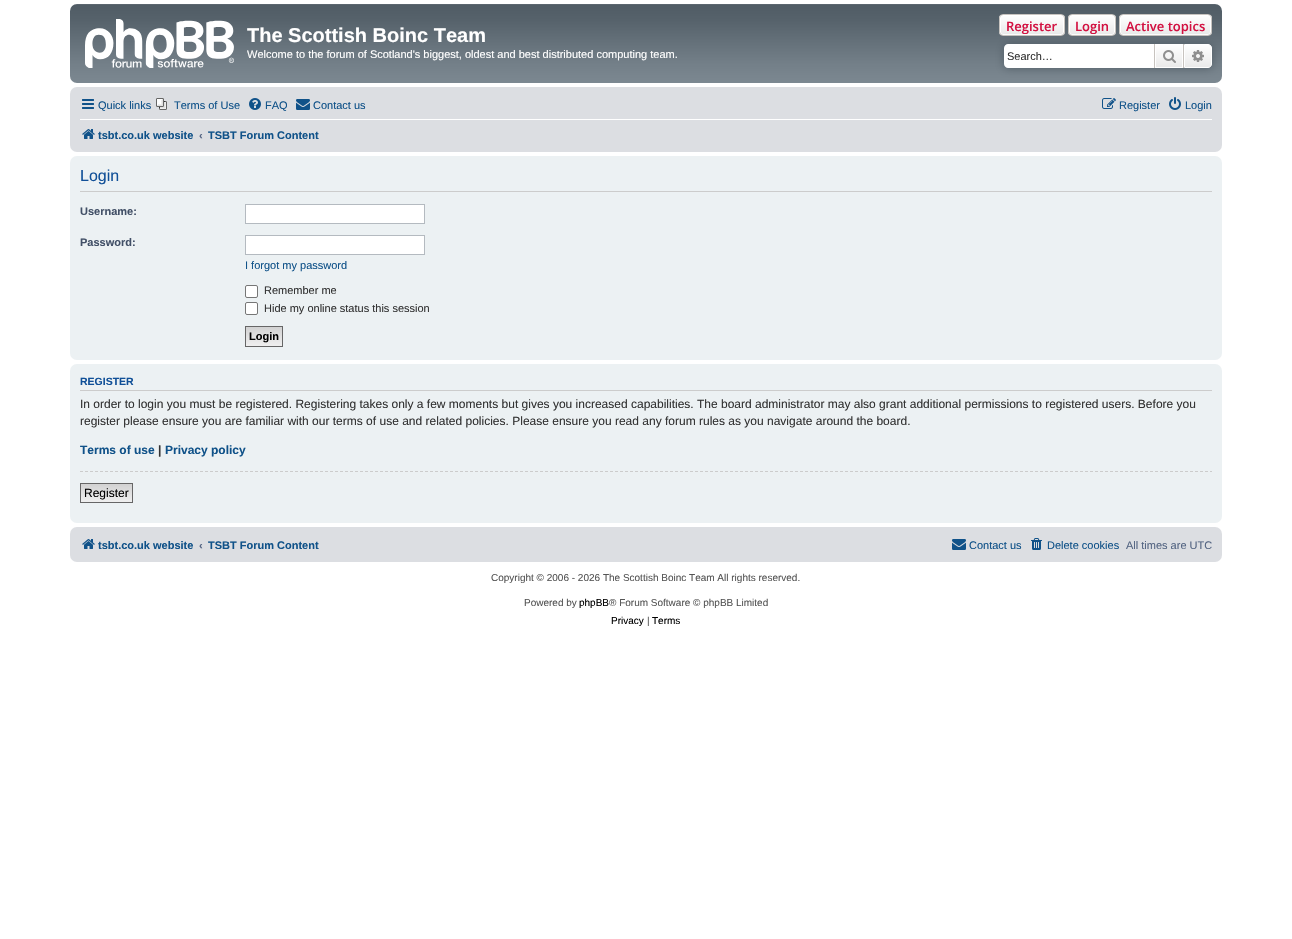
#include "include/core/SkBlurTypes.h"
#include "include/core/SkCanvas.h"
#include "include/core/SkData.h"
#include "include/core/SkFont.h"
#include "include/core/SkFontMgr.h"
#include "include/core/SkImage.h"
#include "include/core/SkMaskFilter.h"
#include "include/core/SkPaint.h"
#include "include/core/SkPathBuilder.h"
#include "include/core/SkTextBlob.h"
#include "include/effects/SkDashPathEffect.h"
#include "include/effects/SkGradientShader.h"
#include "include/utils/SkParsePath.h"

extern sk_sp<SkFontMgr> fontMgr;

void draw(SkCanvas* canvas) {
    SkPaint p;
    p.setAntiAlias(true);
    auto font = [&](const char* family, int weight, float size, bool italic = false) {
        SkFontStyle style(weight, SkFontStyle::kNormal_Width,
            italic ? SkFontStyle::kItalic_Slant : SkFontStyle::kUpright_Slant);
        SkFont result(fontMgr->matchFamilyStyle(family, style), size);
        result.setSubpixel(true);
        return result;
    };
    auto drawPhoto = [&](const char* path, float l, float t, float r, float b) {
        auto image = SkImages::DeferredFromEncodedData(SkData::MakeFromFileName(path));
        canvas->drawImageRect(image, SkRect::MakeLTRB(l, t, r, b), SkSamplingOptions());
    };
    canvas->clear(0xFFFFFFFF);
    {
        const SkColor colors[] = {0xFF6E777F, 0xFF505C65, 0xFF56626B, 0xFF737F88, 0xFF7C8891};
        const float stops[] = {0, 0.01f, 0.2f, 0.75f, 1};
        const SkPoint ends[] = {{646, 4}, {646, 83}};
        p.setShader(SkGradientShader::MakeLinear(ends, colors, stops, 5, SkTileMode::kClamp));
        p.setAlpha(255);
    }
    canvas->drawRoundRect(SkRect::MakeLTRB(70, 4, 1222, 83), 7, 7, p);
    drawPhoto("media/1.png", 85, 19, 234, 68);
    auto font1 = font("Liberation Sans", 700, 20);
    p.setShader(nullptr);
    p.setColor(0xFFFFFFFF);
    canvas->drawString("The Scottish Boinc Team", 247, 42, font1, p);
    auto font2 = font("Liberation Sans", 400, 11);
    canvas->drawString("Welcome to the forum of Scotland's biggest, oldest and best distributed computing team.", 247, 58, font2, p);
    canvas->save();
    canvas->clipPath(SkPathBuilder().moveTo(1003, 14).lineTo(1061, 14).cubicTo(1063, 14, 1065, 16, 1065, 18).lineTo(1065, 32).cubicTo(1065, 34, 1063, 36, 1061, 36).lineTo(1003, 36).cubicTo(1001, 36, 999, 34, 999, 32).lineTo(999, 18).cubicTo(999, 16, 1001, 14, 1003, 14).close().detach(), true);
    {
        const SkColor colors[] = {0xFFFFFFFF, 0xFFE9E9E9};
        const float stops[] = {0, 1};
        const SkPoint ends[] = {{1032, 15}, {1032, 35}};
        p.setShader(SkGradientShader::MakeLinear(ends, colors, stops, 2, SkTileMode::kClamp));
        p.setAlpha(255);
    }
    canvas->drawRect(SkRect::MakeLTRB(999, 15, 1065, 35), p);
    canvas->restore();
    p.setStyle(SkPaint::kStroke_Style);
    p.setStrokeWidth(1);
    p.setShader(nullptr);
    p.setColor(0xFFFFFFFF);
    canvas->drawRoundRect(SkRect::MakeLTRB(1000.5f, 15.5f, 1063.5f, 34.5f), 2.5f, 2.5f, p);
    p.setColor(0xFFC7C3BF);
    canvas->drawRoundRect(SkRect::MakeLTRB(999.5f, 14.5f, 1064.5f, 35.5f), 3.5f, 3.5f, p);
    auto font3 = font("Open Sans", 600, 13);
    p.setStyle(SkPaint::kFill_Style);
    p.setColor(0xFFD31141);
    canvas->drawString("Register", 1006, 31, font3, p);
    canvas->save();
    canvas->clipPath(SkPathBuilder().moveTo(1072, 14).lineTo(1112, 14).cubicTo(1114, 14, 1116, 16, 1116, 18).lineTo(1116, 32).cubicTo(1116, 34, 1114, 36, 1112, 36).lineTo(1072, 36).cubicTo(1070, 36, 1068, 34, 1068, 32).lineTo(1068, 18).cubicTo(1068, 16, 1070, 14, 1072, 14).close().detach(), true);
    {
        const SkColor colors[] = {0xFFFFFFFF, 0xFFE9E9E9};
        const float stops[] = {0, 1};
        const SkPoint ends[] = {{1092, 15}, {1092, 35}};
        p.setShader(SkGradientShader::MakeLinear(ends, colors, stops, 2, SkTileMode::kClamp));
        p.setAlpha(255);
    }
    canvas->drawRect(SkRect::MakeLTRB(1068, 15, 1116, 35), p);
    canvas->restore();
    p.setStyle(SkPaint::kStroke_Style);
    p.setShader(nullptr);
    p.setColor(0xFFFFFFFF);
    canvas->drawRoundRect(SkRect::MakeLTRB(1069.5f, 15.5f, 1114.5f, 34.5f), 2.5f, 2.5f, p);
    p.setColor(0xFFC7C3BF);
    canvas->drawRoundRect(SkRect::MakeLTRB(1068.5f, 14.5f, 1115.5f, 35.5f), 3.5f, 3.5f, p);
    p.setStyle(SkPaint::kFill_Style);
    p.setColor(0xFFD31141);
    canvas->drawString("Login", 1075, 31, font3, p);
    canvas->save();
    canvas->clipPath(SkPathBuilder().moveTo(1123, 14).lineTo(1208, 14).cubicTo(1210, 14, 1212, 16, 1212, 18).lineTo(1212, 32).cubicTo(1212, 34, 1210, 36, 1208, 36).lineTo(1123, 36).cubicTo(1121, 36, 1119, 34, 1119, 32).lineTo(1119, 18).cubicTo(1119, 16, 1121, 14, 1123, 14).close().detach(), true);
    {
        const SkColor colors[] = {0xFFFFFFFF, 0xFFE9E9E9};
        const float stops[] = {0, 1};
        const SkPoint ends[] = {{1166, 15}, {1166, 35}};
        p.setShader(SkGradientShader::MakeLinear(ends, colors, stops, 2, SkTileMode::kClamp));
        p.setAlpha(255);
    }
    canvas->drawRect(SkRect::MakeLTRB(1119, 15, 1212, 35), p);
    canvas->restore();
    p.setStyle(SkPaint::kStroke_Style);
    p.setShader(nullptr);
    p.setColor(0xFFFFFFFF);
    canvas->drawRoundRect(SkRect::MakeLTRB(1120.5f, 15.5f, 1210.5f, 34.5f), 2.5f, 2.5f, p);
    p.setColor(0xFFC7C3BF);
    canvas->drawRoundRect(SkRect::MakeLTRB(1119.5f, 14.5f, 1211.5f, 35.5f), 3.5f, 3.5f, p);
    p.setStyle(SkPaint::kFill_Style);
    p.setColor(0xFFD31141);
    canvas->drawString("Active topics", 1126, 31, font3, p);
    p.setColor(0xFF505C65);
    p.setMaskFilter(SkMaskFilter::MakeBlur(kNormal_SkBlurStyle, 5));
    canvas->drawRoundRect(SkRect::MakeLTRB(1004, 44, 1212, 68), 4, 4, p);
    p.setMaskFilter(nullptr);
    p.setColor(0xFFFFFFFF);
    canvas->drawPath(SkPathBuilder().moveTo(1008, 44).lineTo(1154, 44).lineTo(1154, 68).lineTo(1008, 68).cubicTo(1006, 68, 1004, 66, 1004, 64).lineTo(1004, 48).cubicTo(1004, 46, 1006, 44, 1008, 44).close().detach(), p);
    p.setColor(0xFF333333);
    canvas->drawString("Search…", 1007, 60, font2, p);
    {
        const SkColor colors[] = {0xFFFFFFFF, 0xFFE9E9E9};
        const float stops[] = {0, 1};
        const SkPoint ends[] = {{1169, 44}, {1169, 68}};
        p.setShader(SkGradientShader::MakeLinear(ends, colors, stops, 2, SkTileMode::kClamp));
        p.setAlpha(255);
    }
    canvas->drawRect(SkRect::MakeLTRB(1156, 45, 1182, 67), p);
    p.setStyle(SkPaint::kStroke_Style);
    p.setShader(nullptr);
    p.setColor(0xFFFFFFFF);
    canvas->drawRect(SkRect::MakeLTRB(1155.5f, 44.5f, 1182.5f, 67.5f), p);
    p.setStyle(SkPaint::kFill_Style);
    p.setColor(0xFFC7C3BF);
    canvas->drawRect(SkRect::MakeLTRB(1183, 44, 1184, 68), p);
    canvas->drawRect(SkRect::MakeLTRB(1154, 44, 1155, 68), p);
    drawPhoto("media/2.png", 1163, 50, 1176, 63);
    {
        const SkColor colors[] = {0xFFFFFFFF, 0xFFE9E9E9};
        const float stops[] = {0, 1};
        const SkPoint ends[] = {{1198, 44}, {1198, 68}};
        p.setShader(SkGradientShader::MakeLinear(ends, colors, stops, 2, SkTileMode::kClamp));
        p.setAlpha(255);
    }
    canvas->drawPath(SkPathBuilder().moveTo(1184.5f, 44.5f).lineTo(1208, 44.5f).cubicTo(1210, 44.5f, 1211.5f, 46, 1211.5f, 48).lineTo(1211.5f, 64).cubicTo(1211.5f, 66, 1210, 67.5f, 1208, 67.5f).lineTo(1184.5f, 67.5f).close().detach(), p);
    p.setStyle(SkPaint::kStroke_Style);
    p.setShader(nullptr);
    p.setColor(0xFFFFFFFF);
    canvas->drawPath(SkPathBuilder().moveTo(1184.5f, 44.5f).lineTo(1208, 44.5f).cubicTo(1210, 44.5f, 1211.5f, 46, 1211.5f, 48).lineTo(1211.5f, 64).cubicTo(1211.5f, 66, 1210, 67.5f, 1208, 67.5f).lineTo(1184.5f, 67.5f).close().detach(), p);
    drawPhoto("media/3.png", 1192, 50, 1204, 62);
    p.setStyle(SkPaint::kFill_Style);
    p.setColor(0xFFDCDEE2);
    canvas->drawRoundRect(SkRect::MakeLTRB(70, 87, 1222, 152), 7, 7, p);
    drawPhoto("media/4.png", 82, 99, 94, 109);
    p.setColor(0xFF105289);
    canvas->drawString("Quick links", 98, 109, font2, p);
    drawPhoto("media/5.png", 156, 98, 167, 110);
    canvas->drawString("Terms of Use", 174, 109, font2, p);
    drawPhoto("media/6.png", 249, 98, 261, 110);
    canvas->drawString("FAQ", 265, 109, font2, p);
    drawPhoto("media/7.png", 296, 99, 310, 110);
    canvas->drawString("Contact us", 313, 109, font2, p);
    drawPhoto("media/8.png", 1102, 98, 1116, 109);
    canvas->drawString("Register", 1119, 109, font2, p);
    drawPhoto("media/9.png", 1169, 97, 1181, 110);
    canvas->drawString("Login", 1185, 109, font2, p);
    p.setColor(0xFFFFFFFF);
    canvas->drawRect(SkRect::MakeLTRB(80, 119, 1212, 120), p);
    drawPhoto("media/10.png", 82, 129, 95, 139);
    auto font4 = font("Liberation Sans", 700, 11);
    p.setColor(0xFF105289);
    canvas->drawString("tsbt.co.uk website", 98, 139, font4, p);
    p.setColor(0xFF536482);
    canvas->drawString("‹", 199, 139, font4, p);
    p.setColor(0xFF105289);
    canvas->drawString("TSBT Forum Content", 208, 139, font4, p);
    p.setColor(0xFFECF1F3);
    canvas->drawRoundRect(SkRect::MakeLTRB(70, 156, 1222, 360), 7, 7, p);
    p.setColor(0xFFCCCCCC);
    canvas->drawRect(SkRect::MakeLTRB(80, 191, 1212, 192), p);
    auto font5 = font("Liberation Sans", 400, 16);
    p.setColor(0xFF115098);
    canvas->drawString("Login", 80, 181, font5, p);
    p.setColor(0xFF425067);
    canvas->drawString("Username:", 80, 215, font4, p);
    p.setColor(0xFFFFFFFF);
    canvas->drawRect(SkRect::MakeLTRB(245.5f, 204.5f, 424.5f, 223.5f), p);
    p.setStyle(SkPaint::kStroke_Style);
    p.setColor(0xFFB4BAC0);
    canvas->drawRect(SkRect::MakeLTRB(245.5f, 204.5f, 424.5f, 223.5f), p);
    p.setStyle(SkPaint::kFill_Style);
    p.setColor(0xFF425067);
    canvas->drawString("Password:", 80, 246, font4, p);
    p.setColor(0xFFFFFFFF);
    canvas->drawRect(SkRect::MakeLTRB(245.5f, 235.5f, 424.5f, 254.5f), p);
    p.setStyle(SkPaint::kStroke_Style);
    p.setColor(0xFFB4BAC0);
    canvas->drawRect(SkRect::MakeLTRB(245.5f, 235.5f, 424.5f, 254.5f), p);
    p.setStyle(SkPaint::kFill_Style);
    p.setColor(0xFF105289);
    canvas->drawString("I forgot my password", 245, 269, font2, p);
    p.setColor(0xFFFFFFFF);
    canvas->drawRoundRect(SkRect::MakeLTRB(245.5f, 285.5f, 257.5f, 297.5f), 1.5f, 1.5f, p);
    p.setStyle(SkPaint::kStroke_Style);
    p.setColor(0xFF767676);
    canvas->drawRoundRect(SkRect::MakeLTRB(245.5f, 285.5f, 257.5f, 297.5f), 1.5f, 1.5f, p);
    p.setStyle(SkPaint::kFill_Style);
    p.setColor(0xFF333333);
    canvas->drawString("Remember me", 264, 294, font2, p);
    p.setColor(0xFFFFFFFF);
    canvas->drawRoundRect(SkRect::MakeLTRB(245.5f, 302.5f, 257.5f, 314.5f), 1.5f, 1.5f, p);
    p.setStyle(SkPaint::kStroke_Style);
    p.setColor(0xFF767676);
    canvas->drawRoundRect(SkRect::MakeLTRB(245.5f, 302.5f, 257.5f, 314.5f), 1.5f, 1.5f, p);
    p.setStyle(SkPaint::kFill_Style);
    p.setColor(0xFF333333);
    canvas->drawString("Hide my online status this session", 264, 312, font2, p);
    {
        const SkColor colors[] = {0xFFD2D2D2, 0xFFEFEFEF};
        const float stops[] = {0, 1};
        const SkPoint ends[] = {{264, 327}, {264, 346}};
        p.setShader(SkGradientShader::MakeLinear(ends, colors, stops, 2, SkTileMode::kClamp));
        p.setAlpha(255);
    }
    canvas->drawRect(SkRect::MakeLTRB(246, 327, 282, 346), p);
    p.setStyle(SkPaint::kStroke_Style);
    p.setShader(nullptr);
    p.setColor(0xFF666666);
    canvas->drawRect(SkRect::MakeLTRB(245.5f, 326.5f, 282.5f, 346.5f), p);
    p.setStyle(SkPaint::kFill_Style);
    p.setColor(0xFF000000);
    canvas->drawString("Login", 249, 340, font4, p);
    p.setColor(0xFFECF1F3);
    canvas->drawRoundRect(SkRect::MakeLTRB(70, 364, 1222, 523), 7, 7, p);
    p.setColor(0xFFCCCCCC);
    canvas->drawRect(SkRect::MakeLTRB(80, 390, 1212, 391), p);
    auto font6 = font("Liberation Sans", 700, 10.5f);
    p.setColor(0xFF115098);
    canvas->drawString("REGISTER", 80, 385, font6, p);
    auto font7 = font("Liberation Sans", 400, 12);
    p.setColor(0xFF333333);
    canvas->drawString("In order to login you must be registered. Registering takes only a few moments but gives you increased capabilities. The board administrator may also grant additional permissions to registered users. Before you", 80, 408, font7, p);
    canvas->drawString("register please ensure you are familiar with our terms of use and related policies. Please ensure you read any forum rules as you navigate around the board.", 80, 425, font7, p);
    auto font8 = font("Liberation Sans", 700, 12);
    p.setColor(0xFF105289);
    canvas->drawString("Terms of use", 80, 454, font8, p);
    p.setColor(0xFF333333);
    canvas->drawString("|", 158, 454, font8, p);
    p.setColor(0xFF105289);
    canvas->drawString("Privacy policy", 165, 454, font8, p);
    p.setStyle(SkPaint::kStroke_Style);
    p.setColor(0xFFCCCCCC);
    p.setPathEffect(SkDashPathEffect::Make({{3, 2}}, 0));
    canvas->drawPath(SkPathBuilder().moveTo(80, 471.5f).lineTo(1212, 471.5f).detach(), p);
    p.setPathEffect(nullptr);
    p.setStyle(SkPaint::kFill_Style);
    {
        const SkColor colors[] = {0xFFD2D2D2, 0xFFEFEFEF};
        const float stops[] = {0, 1};
        const SkPoint ends[] = {{107, 484}, {107, 502}};
        p.setShader(SkGradientShader::MakeLinear(ends, colors, stops, 2, SkTileMode::kClamp));
        p.setAlpha(255);
    }
    canvas->drawRect(SkRect::MakeLTRB(81, 484, 132, 502), p);
    p.setStyle(SkPaint::kStroke_Style);
    p.setShader(nullptr);
    p.setColor(0xFF666666);
    canvas->drawRect(SkRect::MakeLTRB(80.5f, 483.5f, 132.5f, 502.5f), p);
    p.setStyle(SkPaint::kFill_Style);
    p.setColor(0xFF000000);
    canvas->drawString("Register", 84, 497, font7, p);
    p.setColor(0xFFDCDEE2);
    canvas->drawRoundRect(SkRect::MakeLTRB(70, 527, 1222, 562), 7, 7, p);
    drawPhoto("media/10.png", 82, 539, 95, 549);
    p.setColor(0xFF105289);
    canvas->drawString("tsbt.co.uk website", 98, 549, font4, p);
    p.setColor(0xFF536482);
    canvas->drawString("‹", 199, 549, font4, p);
    p.setColor(0xFF105289);
    canvas->drawString("TSBT Forum Content", 208, 549, font4, p);
    drawPhoto("media/7.png", 952, 539, 966, 550);
    canvas->drawString("Contact us", 969, 549, font2, p);
    drawPhoto("media/11.png", 1031, 538, 1042, 550);
    canvas->drawString("Delete cookies", 1047, 549, font2, p);
    p.setColor(0xFF536482);
    canvas->drawString("All times are UTC", 1126, 549, font2, p);
    auto font9 = font("Liberation Sans", 400, 10);
    p.setColor(0xFF555555);
    canvas->drawString("Copyright © 2006 - 2026 The Scottish Boinc Team All rights reserved.", 491, 581, font9, p);
    canvas->drawString("Powered by", 524, 606, font9, p);
    p.setColor(0xFF000000);
    canvas->drawString("phpBB", 579, 606, font9, p);
    p.setColor(0xFF555555);
    canvas->drawString("® Forum Software © phpBB Limited", 609, 606, font9, p);
    p.setColor(0xFF000000);
    canvas->drawString("Privacy", 611, 624, font9, p);
    p.setColor(0xFF555555);
    canvas->drawString("|", 647, 624, font9, p);
    p.setColor(0xFF000000);
    canvas->drawString("Terms", 652, 624, font9, p);
}
